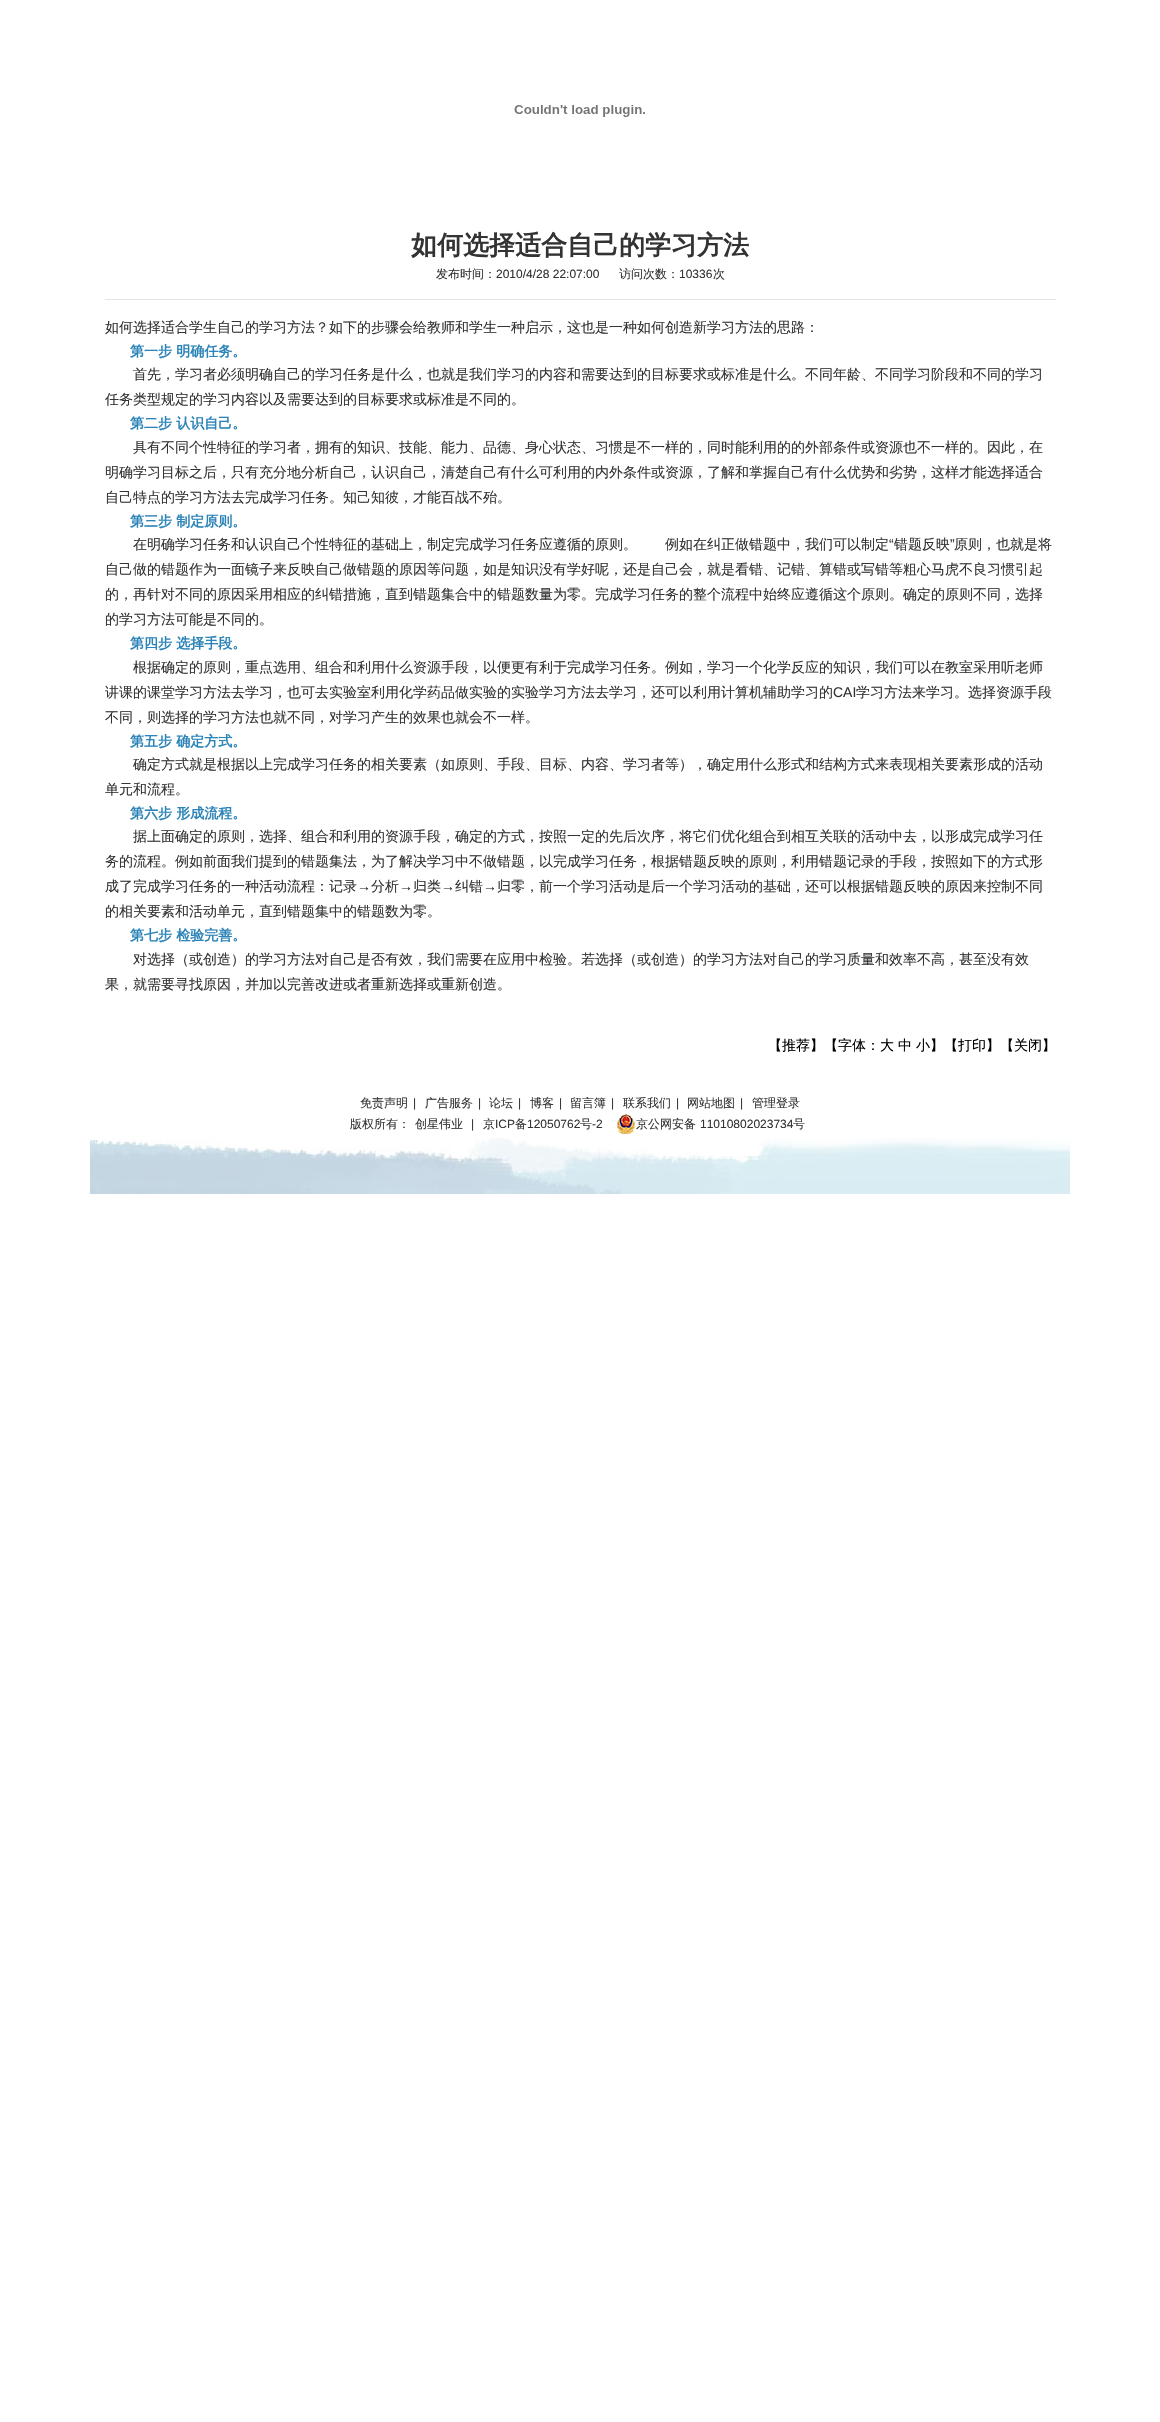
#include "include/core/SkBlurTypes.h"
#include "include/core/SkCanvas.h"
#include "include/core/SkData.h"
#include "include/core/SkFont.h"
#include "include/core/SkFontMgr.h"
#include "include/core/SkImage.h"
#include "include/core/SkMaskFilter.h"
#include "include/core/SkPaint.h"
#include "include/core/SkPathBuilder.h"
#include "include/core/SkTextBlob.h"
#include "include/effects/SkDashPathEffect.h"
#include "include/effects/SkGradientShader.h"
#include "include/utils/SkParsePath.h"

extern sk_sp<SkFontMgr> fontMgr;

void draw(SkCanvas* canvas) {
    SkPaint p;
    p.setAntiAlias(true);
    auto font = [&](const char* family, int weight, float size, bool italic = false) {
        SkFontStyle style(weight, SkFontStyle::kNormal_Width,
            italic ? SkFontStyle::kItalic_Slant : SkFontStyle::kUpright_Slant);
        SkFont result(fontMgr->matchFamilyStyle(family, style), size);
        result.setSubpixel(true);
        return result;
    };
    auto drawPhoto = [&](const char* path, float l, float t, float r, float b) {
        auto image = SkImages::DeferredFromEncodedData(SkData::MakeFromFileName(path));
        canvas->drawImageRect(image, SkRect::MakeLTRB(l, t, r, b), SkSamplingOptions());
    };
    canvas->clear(0xFFFFFFFF);
    drawPhoto("media/1.png", 514, 105, 645, 117);
    auto font1 = font("WenQuanYi Zen Hei", 700, 26);
    p.setColor(0xFF333333);
    canvas->drawString("如何选择适合自己的学习方法", 411, 254, font1, p);
    p.setColor(0xFFE5E5E5);
    canvas->drawRect(SkRect::MakeLTRB(105, 299, 1056, 300), p);
    auto font2 = font("WenQuanYi Zen Hei", 500, 12);
    p.setColor(0xFF333333);
    canvas->drawString("发布时间：", 436, 278, font2, p);
    auto font3 = font("Liberation Sans", 400, 12);
    canvas->drawString("2010/4/28 22:07:00", 496, 278, font3, p);
    canvas->drawString("访问次数：", 619, 278, font2, p);
    canvas->drawString("10336", 679, 278, font3, p);
    canvas->drawString("次", 713, 278, font2, p);
    auto font4 = font("WenQuanYi Zen Hei", 500, 14);
    canvas->drawString("如何选择适合学生自己的学习方法？如下的步骤会给教师和学生一种启示，这也是一种如何创造新学习方法的思路：", 105, 332, font4, p);
    auto font5 = font("WenQuanYi Zen Hei", 700, 14);
    p.setColor(0xFF2C84B8);
    canvas->drawString("第一步 明确任务。", 130, 356, font5, p);
    p.setColor(0xFF333333);
    canvas->drawString("首先，学习者必须明确自己的学习任务是什么，也就是我们学习的内容和需要达到的目标要求或标准是什么。不同年龄、不同学习阶段和不同的学习", 133, 379, font4, p);
    canvas->drawString("任务类型规定的学习内容以及需要达到的目标要求或标准是不同的。", 105, 404, font4, p);
    p.setColor(0xFF2C84B8);
    canvas->drawString("第二步 认识自己。", 130, 428, font5, p);
    p.setColor(0xFF333333);
    {
        const struct { const char* s; float x, y; } items[] = {
            {"具有不同个性特征的学习者，拥有的知识、技能、能力、品德、身心状态、习惯是不一样的，同时能利用的的外部条件或资源也不一样的。因此，在", 133, 452},
            {"明确学习目标之后，只有充分地分析自己，认识自己，清楚自己有什么可利用的内外条件或资源，了解和掌握自己有什么优势和劣势，这样才能选择适合", 105, 477},
            {"自己特点的学习方法去完成学习任务。知己知彼，才能百战不殆。", 105, 502},
        };
        for (auto [s, x, y] : items) {
            canvas->drawString(s, x, y, font4, p);
        }
    }
    p.setColor(0xFF2C84B8);
    canvas->drawString("第三步 制定原则。", 130, 526, font5, p);
    p.setColor(0xFF333333);
    canvas->drawString("在明确学习任务和认识自己个性特征的基础上，制定完成学习任务应遵循的原则。　　例如在纠正做错题中，我们可以制定", 133, 549, font4, p);
    auto font6 = font("Liberation Sans", 400, 14);
    canvas->drawString("“", 889, 549, font6, p);
    canvas->drawString("错题反映", 894, 549, font4, p);
    canvas->drawString("”", 950, 549, font6, p);
    {
        const struct { const char* s; float x, y; } items[] = {
            {"原则，也就是将", 954, 549},
            {"自己做的错题作为一面镜子来反映自己做错题的原因等问题，如是知识没有学好呢，还是自己会，就是看错、记错、算错或写错等粗心马虎不良习惯引起", 105, 574},
            {"的，再针对不同的原因采用相应的纠错措施，直到错题集合中的错题数量为零。完成学习任务的整个流程中始终应遵循这个原则。确定的原则不同，选择", 105, 599},
            {"的学习方法可能是不同的。", 105, 624},
        };
        for (auto [s, x, y] : items) {
            canvas->drawString(s, x, y, font4, p);
        }
    }
    p.setColor(0xFF2C84B8);
    canvas->drawString("第四步 选择手段。", 130, 648, font5, p);
    p.setColor(0xFF333333);
    canvas->drawString("根据确定的原则，重点选用、组合和利用什么资源手段，以便更有利于完成学习任务。例如，学习一个化学反应的知识，我们可以在教室采用听老师", 133, 672, font4, p);
    canvas->drawString("讲课的课堂学习方法去学习，也可去实验室利用化学药品做实验的实验学习方法去学习，还可以利用计算机辅助学习的", 105, 697, font4, p);
    canvas->drawString("CAI", 833, 697, font6, p);
    canvas->drawString("学习方法来学习。选择资源手段", 856, 697, font4, p);
    canvas->drawString("不同，则选择的学习方法也就不同，对学习产生的效果也就会不一样。", 105, 722, font4, p);
    p.setColor(0xFF2C84B8);
    canvas->drawString("第五步 确定方式。", 130, 746, font5, p);
    p.setColor(0xFF333333);
    canvas->drawString("确定方式就是根据以上完成学习任务的相关要素（如原则、手段、目标、内容、学习者等），确定用什么形式和结构方式来表现相关要素形成的活动", 133, 769, font4, p);
    canvas->drawString("单元和流程。", 105, 794, font4, p);
    p.setColor(0xFF2C84B8);
    canvas->drawString("第六步 形成流程。", 130, 818, font5, p);
    p.setColor(0xFF333333);
    {
        const struct { const char* s; float x, y; } items[] = {
            {"据上面确定的原则，选择、组合和利用的资源手段，确定的方式，按照一定的先后次序，将它们优化组合到相互关联的活动中去，以形成完成学习任", 133, 841},
            {"务的流程。例如前面我们提到的错题集法，为了解决学习中不做错题，以完成学习任务，根据错题反映的原则，利用错题记录的手段，按照如下的方式形", 105, 866},
            {"成了完成学习任务的一种活动流程：记录", 105, 891},
        };
        for (auto [s, x, y] : items) {
            canvas->drawString(s, x, y, font4, p);
        }
    }
    canvas->drawString("→", 357, 891, font6, p);
    canvas->drawString("分析", 371, 891, font4, p);
    canvas->drawString("→", 399, 891, font6, p);
    canvas->drawString("归类", 413, 891, font4, p);
    canvas->drawString("→", 441, 891, font6, p);
    canvas->drawString("纠错", 455, 891, font4, p);
    canvas->drawString("→", 483, 891, font6, p);
    canvas->drawString("归零，前一个学习活动是后一个学习活动的基础，还可以根据错题反映的原因来控制不同", 497, 891, font4, p);
    canvas->drawString("的相关要素和活动单元，直到错题集中的错题数为零。", 105, 916, font4, p);
    p.setColor(0xFF2C84B8);
    canvas->drawString("第七步 检验完善。", 130, 940, font5, p);
    p.setColor(0xFF333333);
    canvas->drawString("对选择（或创造）的学习方法对自己是否有效，我们需要在应用中检验。若选择（或创造）的学习方法对自己的学习质量和效率不高，甚至没有效", 133, 964, font4, p);
    canvas->drawString("果，就需要寻找原因，并加以完善改进或者重新选择或重新创造。", 105, 989, font4, p);
    p.setColor(0xFF000000);
    {
        const struct { const char* s; float x, y; } items[] = {
            {"【推荐】【字体：大", 768, 1050},
            {"中", 898, 1050},
            {"小】【打印】【关闭】", 916, 1050},
        };
        for (auto [s, x, y] : items) {
            canvas->drawString(s, x, y, font4, p);
        }
    }
    drawPhoto("media/2.png", 90, 1138, 1070, 1194);
    p.setColor(0xFF333333);
    canvas->drawString("免责声明", 360, 1107, font2, p);
    canvas->drawString("|", 413, 1107, font3, p);
    canvas->drawString("广告服务", 425, 1107, font2, p);
    canvas->drawString("|", 478, 1107, font3, p);
    canvas->drawString("论坛", 489, 1107, font2, p);
    canvas->drawString("|", 518, 1107, font3, p);
    canvas->drawString("博客", 530, 1107, font2, p);
    canvas->drawString("|", 559, 1107, font3, p);
    canvas->drawString("留言簿", 570, 1107, font2, p);
    canvas->drawString("|", 611, 1107, font3, p);
    canvas->drawString("联系我们", 623, 1107, font2, p);
    canvas->drawString("|", 676, 1107, font3, p);
    canvas->drawString("网站地图", 687, 1107, font2, p);
    canvas->drawString("|", 740, 1107, font3, p);
    {
        const struct { const char* s; float x, y; } items[] = {
            {"管理登录", 752, 1107},
            {"版权所有：", 350, 1128},
            {"创星伟业", 415, 1128},
        };
        for (auto [s, x, y] : items) {
            canvas->drawString(s, x, y, font2, p);
        }
    }
    canvas->drawString("|", 471, 1128, font3, p);
    canvas->drawString("京", 483, 1128, font2, p);
    canvas->drawString("ICP", 495, 1128, font3, p);
    canvas->drawString("备", 515, 1128, font2, p);
    canvas->drawString("12050762", 527, 1128, font3, p);
    canvas->drawString("号", 580, 1128, font2, p);
    canvas->drawString("-2", 592, 1128, font3, p);
    drawPhoto("media/3.png", 617, 1114, 635, 1134);
    canvas->drawString("京公网安备", 636, 1128, font2, p);
    canvas->drawString("11010802023734", 700, 1128, font3, p);
    canvas->drawString("号", 793, 1128, font2, p);
}
